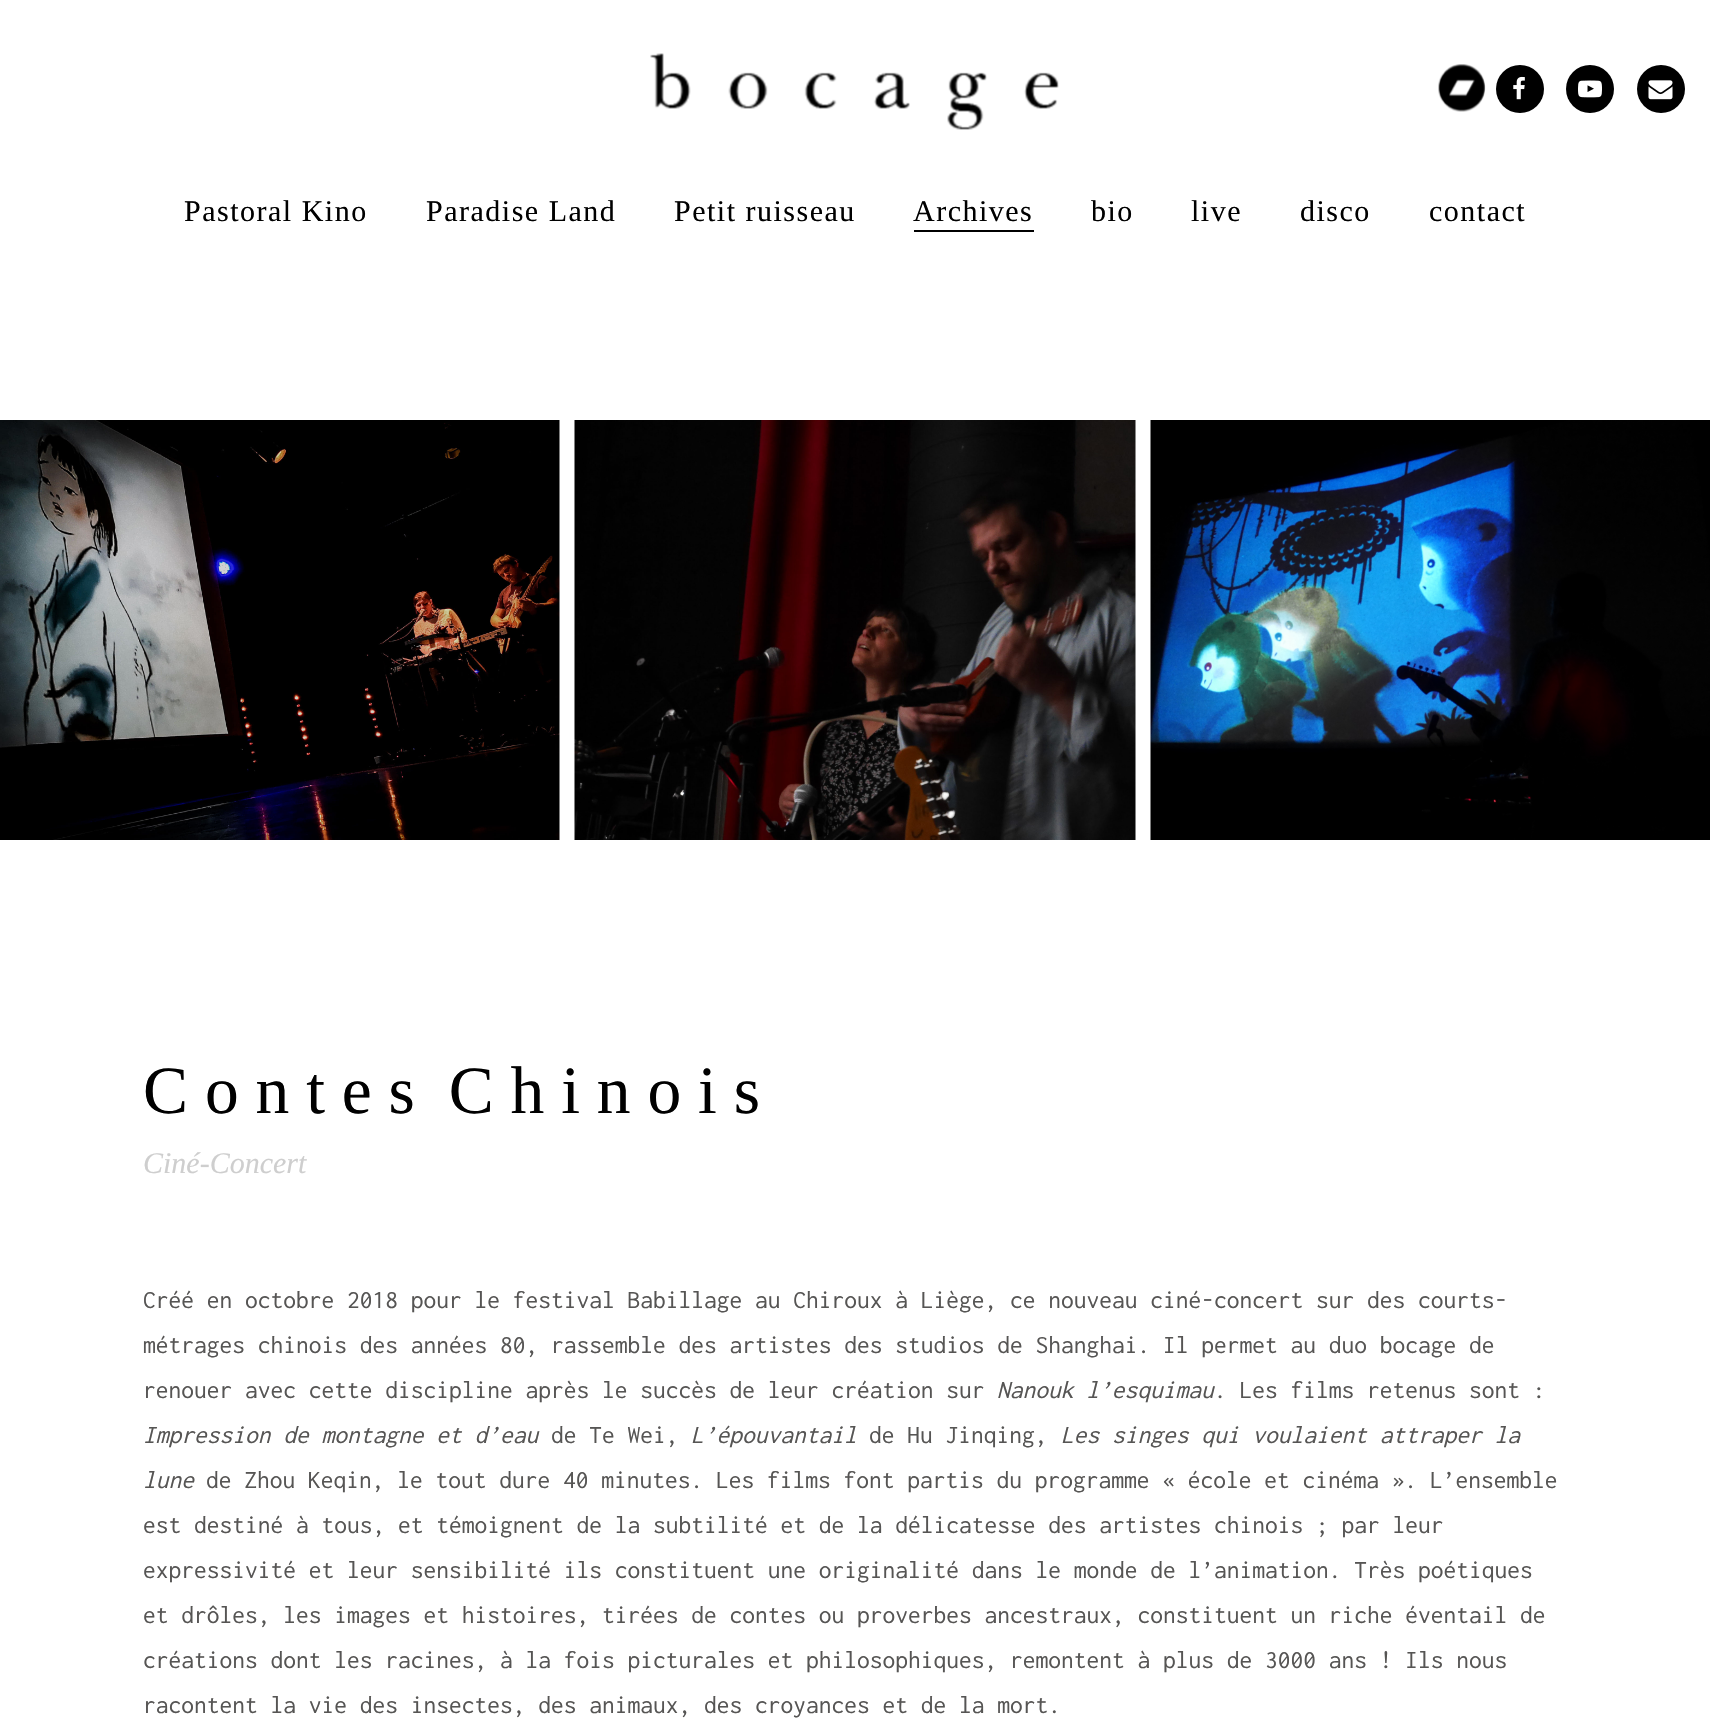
#include "include/core/SkBlurTypes.h"
#include "include/core/SkCanvas.h"
#include "include/core/SkData.h"
#include "include/core/SkFont.h"
#include "include/core/SkFontMgr.h"
#include "include/core/SkImage.h"
#include "include/core/SkMaskFilter.h"
#include "include/core/SkPaint.h"
#include "include/core/SkPathBuilder.h"
#include "include/core/SkTextBlob.h"
#include "include/effects/SkDashPathEffect.h"
#include "include/effects/SkGradientShader.h"
#include "include/utils/SkParsePath.h"

extern sk_sp<SkFontMgr> fontMgr;

void draw(SkCanvas* canvas) {
    SkPaint p;
    p.setAntiAlias(true);
    auto font = [&](const char* family, int weight, float size, bool italic = false) {
        SkFontStyle style(weight, SkFontStyle::kNormal_Width,
            italic ? SkFontStyle::kItalic_Slant : SkFontStyle::kUpright_Slant);
        SkFont result(fontMgr->matchFamilyStyle(family, style), size);
        result.setSubpixel(true);
        return result;
    };
    auto drawTracked = [&](const char* s, float x, float y, const SkFont& font, const SkPaint& ink, float letter, float word) {
        std::vector<SkGlyphID> glyphs(font.countText(s, strlen(s), SkTextEncoding::kUTF8));
        std::vector<float> xs(glyphs.size());
        font.textToGlyphs(s, strlen(s), SkTextEncoding::kUTF8, glyphs);
        font.getXPos(glyphs, xs, x);
        float extra = 0;
        for (size_t i = 0; i < glyphs.size(); i++) {
            xs[i] += extra;
            extra += letter + word * (glyphs[i] == font.unicharToGlyph(' '));
        }
        canvas->drawTextBlob(SkTextBlob::MakeFromPosHGlyphs(glyphs, xs, y, font), 0, 0, ink);
    };
    auto drawPhoto = [&](const char* path, float l, float t, float r, float b) {
        auto image = SkImages::DeferredFromEncodedData(SkData::MakeFromFileName(path));
        canvas->drawImageRect(image, SkRect::MakeLTRB(l, t, r, b), SkSamplingOptions());
    };
    canvas->clear(0xFFFFFFFF);
    drawPhoto("media/1.png", 650, 53, 1059, 130);
    drawPhoto("media/2.png", 1438, 64, 1486, 112);
    p.setColor(0xFF000000);
    canvas->drawCircle(1520, 89, 24, p);
    drawPhoto("media/3.png", 1513, 76, 1525, 100);
    canvas->drawCircle(1590, 89, 24, p);
    drawPhoto("media/4.png", 1578, 80, 1602, 98);
    canvas->drawCircle(1661, 89, 24, p);
    drawPhoto("media/5.png", 1648, 80, 1673, 100);
    auto font1 = font("Liberation Serif", 400, 30);
    {
        const struct { const char* s; float x, y; } items[] = {
            {"Pastoral Kino", 184, 221},
            {"Paradise Land", 426, 221},
            {"Petit ruisseau", 674, 221},
            {"Archives", 913, 221},
        };
        for (auto [s, x, y] : items) {
            drawTracked(s, x, y, font1, p, 1.5f, 0);
        }
    }
    canvas->drawRect(SkRect::MakeLTRB(914, 230, 1034, 232), p);
    {
        const struct { const char* s; float x, y; } items[] = {
            {"bio", 1091, 221},
            {"live", 1191, 221},
            {"disco", 1300, 221},
            {"contact", 1429, 221},
        };
        for (auto [s, x, y] : items) {
            drawTracked(s, x, y, font1, p, 1.5f, 0);
        }
    }
    drawPhoto("media/6.png", 0, 420, 560, 840);
    drawPhoto("media/7.png", 574, 420, 1136, 840);
    drawPhoto("media/8.png", 1150, 420, 1710, 840);
    auto font2 = font("Liberation Serif", 400, 67.5f);
    canvas->drawString("C o n t e s  C h i n o i s", 143, 1113, font2, p);
    auto font3 = font("Liberation Serif", 400, 30, true);
    p.setColor(0xFFCECECE);
    canvas->drawString("Ciné-Concert", 143, 1173, font3, p);
    auto font4 = font("Inconsolata", 400, 25.5f);
    p.setColor(0xFF565554);
    {
        const struct { const char* s; float x, y; } items[] = {
            {"Créé en octobre 2018 pour le festival Babillage au Chiroux à Liège, ce nouveau ciné-concert sur des courts-", 143, 1308},
            {"métrages chinois des années 80, rassemble des artistes des studios de Shanghai. Il permet au duo bocage de", 143, 1353},
            {"renouer avec cette discipline après le succès de leur création sur", 143, 1398},
        };
        for (auto [s, x, y] : items) {
            canvas->drawString(s, x, y, font4, p);
        }
    }
    auto font5 = font("Inconsolata", 400, 25.5f, true);
    canvas->drawString("Nanouk l’esquimau", 997, 1398, font5, p);
    canvas->drawString(". Les films retenus sont :", 1214, 1398, font4, p);
    canvas->drawString("Impression de montagne et d’eau", 143, 1443, font5, p);
    canvas->drawString("de Te Wei,", 551, 1443, font4, p);
    canvas->drawString("L’épouvantail", 691, 1443, font5, p);
    canvas->drawString("de Hu Jinqing,", 869, 1443, font4, p);
    canvas->drawString("Les singes qui voulaient attraper la", 1061, 1443, font5, p);
    canvas->drawString("lune", 143, 1488, font5, p);
    {
        const struct { const char* s; float x, y; } items[] = {
            {"de Zhou Keqin, le tout dure 40 minutes. Les films font partis du programme « école et cinéma ». L’ensemble", 206, 1488},
            {"est destiné à tous, et témoignent de la subtilité et de la délicatesse des artistes chinois ; par leur", 143, 1533},
            {"expressivité et leur sensibilité ils constituent une originalité dans le monde de l’animation. Très poétiques", 143, 1578},
            {"et drôles, les images et histoires, tirées de contes ou proverbes ancestraux, constituent un riche éventail de", 143, 1623},
            {"créations dont les racines, à la fois picturales et philosophiques, remontent à plus de 3000 ans ! Ils nous", 143, 1668},
            {"racontent la vie des insectes, des animaux, des croyances et de la mort.", 143, 1713},
        };
        for (auto [s, x, y] : items) {
            canvas->drawString(s, x, y, font4, p);
        }
    }
}
